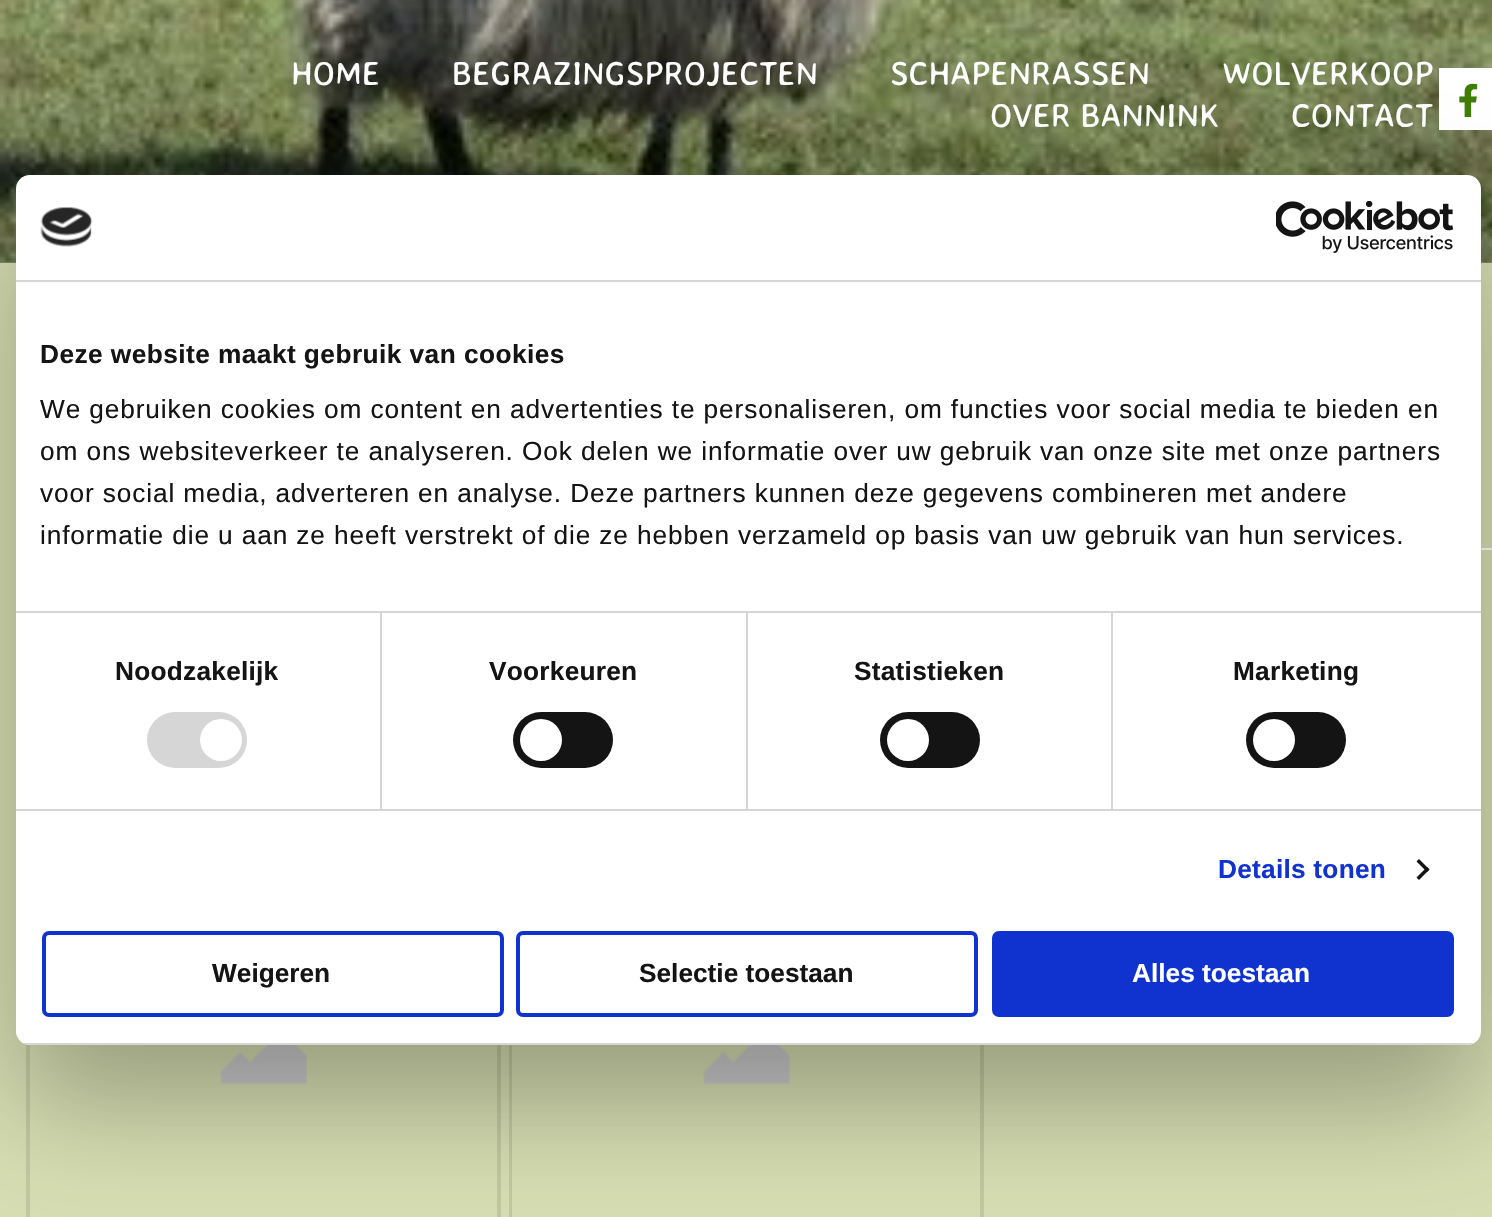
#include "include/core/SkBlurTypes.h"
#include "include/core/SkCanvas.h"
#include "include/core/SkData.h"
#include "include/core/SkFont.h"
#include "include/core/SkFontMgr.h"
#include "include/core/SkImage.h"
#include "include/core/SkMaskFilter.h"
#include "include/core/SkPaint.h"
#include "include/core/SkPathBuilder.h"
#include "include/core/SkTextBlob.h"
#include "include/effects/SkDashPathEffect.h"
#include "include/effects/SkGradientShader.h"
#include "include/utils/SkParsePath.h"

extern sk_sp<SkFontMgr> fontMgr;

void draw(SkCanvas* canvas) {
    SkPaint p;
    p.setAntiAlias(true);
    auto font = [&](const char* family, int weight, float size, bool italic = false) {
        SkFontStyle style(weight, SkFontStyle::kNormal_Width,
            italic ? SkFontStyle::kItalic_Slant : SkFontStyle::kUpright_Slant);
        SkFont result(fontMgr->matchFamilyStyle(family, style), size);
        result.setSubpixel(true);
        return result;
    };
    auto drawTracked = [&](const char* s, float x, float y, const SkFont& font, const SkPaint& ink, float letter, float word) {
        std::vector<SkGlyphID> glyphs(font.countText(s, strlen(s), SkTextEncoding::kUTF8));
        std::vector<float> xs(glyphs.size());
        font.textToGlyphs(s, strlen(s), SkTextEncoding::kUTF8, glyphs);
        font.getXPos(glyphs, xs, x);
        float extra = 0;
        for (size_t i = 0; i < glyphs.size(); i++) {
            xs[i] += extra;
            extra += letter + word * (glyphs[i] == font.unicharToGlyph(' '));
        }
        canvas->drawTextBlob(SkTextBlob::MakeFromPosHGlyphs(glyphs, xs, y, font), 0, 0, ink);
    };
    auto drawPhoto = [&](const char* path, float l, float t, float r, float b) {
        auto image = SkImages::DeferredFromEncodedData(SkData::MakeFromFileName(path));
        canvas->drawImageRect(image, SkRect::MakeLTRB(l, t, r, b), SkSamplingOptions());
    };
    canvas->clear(0xFFD7DEB2);
    drawPhoto("media/1.png", 0, 0, 1492, 263);
    {
        const SkColor colors[] = {0x00000000, 0x4D000000};
        const float stops[] = {0, 1};
        const SkPoint ends[] = {{0, -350}, {0, 263}};
        p.setShader(SkGradientShader::MakeLinear(ends, colors, stops, 2, SkTileMode::kClamp));
        p.setAlpha(255);
    }
    canvas->drawRect(SkRect::MakeLTRB(0, 0, 1492, 263), p);
    drawPhoto("media/2.png", 220, 1045, 307, 1084);
    p.setStyle(SkPaint::kStroke_Style);
    p.setStrokeWidth(4);
    p.setShader(nullptr);
    p.setColor(0xFFC2C8A0);
    canvas->drawRect(SkRect::MakeLTRB(28, 816, 499, 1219), p);
    drawPhoto("media/2.png", 703, 1045, 790, 1084);
    canvas->save();
    canvas->clipRect(SkRect::MakeLTRB(509, 814, 984, 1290));
    canvas->drawRect(SkRect::MakeLTRB(510, 816, 982, 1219), p);
    canvas->restore();
    auto font1 = font("Averia Sans Libre", 400, 33.25f);
    p.setStyle(SkPaint::kFill_Style);
    p.setColor(0xFFFFFFFF);
    {
        const struct { const char* s; float x, y; } items[] = {
            {"HOME", 291, 85},
            {"BEGRAZINGSPROJECTEN", 452, 85},
            {"SCHAPENRASSEN", 890, 85},
            {"WOLVERKOOP", 1222, 85},
            {"OVER BANNINK", 990, 127},
            {"CONTACT", 1291, 127},
        };
        for (auto [s, x, y] : items) {
            canvas->drawString(s, x, y, font1, p);
        }
    }
    canvas->drawRect(SkRect::MakeLTRB(1481, 548, 1492, 550), p);
    canvas->drawRect(SkRect::MakeLTRB(1439, 68, 1492, 130), p);
    drawPhoto("media/3.png", 1459, 83, 1478, 117);
    p.setColor(0x4D000000);
    p.setMaskFilter(SkMaskFilter::MakeBlur(kNormal_SkBlurStyle, 59.5f));
    canvas->drawRoundRect(SkRect::MakeLTRB(16, 231, 1481, 1101), 14, 14, p);
    p.setMaskFilter(nullptr);
    p.setColor(0xFFFFFFFF);
    canvas->drawRoundRect(SkRect::MakeLTRB(16, 175, 1481, 1045), 14, 14, p);
    p.setColor(0xFFD6D6D6);
    canvas->drawRect(SkRect::MakeLTRB(16, 280, 1481, 282), p);
    drawPhoto("media/4.png", 40, 207, 93, 247);
    drawPhoto("media/5.png", 1276, 201, 1454, 253);
    canvas->drawRect(SkRect::MakeLTRB(16, 611, 1481, 613), p);
    auto font2 = font("Liberation Sans", 700, 26.25f);
    p.setColor(0xFF141414);
    drawTracked("Deze website maakt gebruik van cookies", 40, 363, font2, p, 0.45f, 0);
    auto font3 = font("Liberation Sans", 400, 26.25f);
    {
        const struct { const char* s; float x, y; } items[] = {
            {"We gebruiken cookies om content en advertenties te personaliseren, om functies voor social media te bieden en", 40, 418},
            {"om ons websiteverkeer te analyseren. Ook delen we informatie over uw gebruik van onze site met onze partners", 40, 460},
            {"voor social media, adverteren en analyse. Deze partners kunnen deze gegevens combineren met andere", 40, 502},
            {"informatie die u aan ze heeft verstrekt of die ze hebben verzameld op basis van uw gebruik van hun services.", 40, 544},
        };
        for (auto [s, x, y] : items) {
            drawTracked(s, x, y, font3, p, 0.88f, 0);
        }
    }
    p.setColor(0xFFD6D6D6);
    canvas->drawRect(SkRect::MakeLTRB(16, 809, 1481, 811), p);
    canvas->drawRect(SkRect::MakeLTRB(380, 613, 382, 809), p);
    p.setColor(0xFF141414);
    drawTracked("Noodzakelijk", 115, 680, font2, p, 0.25f, 0);
    p.setColor(0xFFD6D6D6);
    canvas->drawRoundRect(SkRect::MakeLTRB(147, 712, 247, 768), 28, 28, p);
    p.setColor(0xFFFFFFFF);
    canvas->drawCircle(221, 740, 21, p);
    p.setColor(0xFFD6D6D6);
    canvas->drawRect(SkRect::MakeLTRB(746, 613, 748, 809), p);
    p.setColor(0xFF141414);
    drawTracked("Voorkeuren", 489, 680, font2, p, 0.25f, 0);
    canvas->drawRoundRect(SkRect::MakeLTRB(513, 712, 613, 768), 28, 28, p);
    p.setColor(0xFFFFFFFF);
    canvas->drawCircle(541, 740, 21, p);
    p.setColor(0xFFD6D6D6);
    canvas->drawRect(SkRect::MakeLTRB(1111, 613, 1113, 809), p);
    p.setColor(0xFF141414);
    drawTracked("Statistieken", 854, 680, font2, p, 0.25f, 0);
    canvas->drawRoundRect(SkRect::MakeLTRB(880, 712, 980, 768), 28, 28, p);
    p.setColor(0xFFFFFFFF);
    canvas->drawCircle(908, 740, 21, p);
    p.setColor(0xFF141414);
    drawTracked("Marketing", 1233, 680, font2, p, 0.25f, 0);
    canvas->drawRoundRect(SkRect::MakeLTRB(1246, 712, 1346, 768), 28, 28, p);
    p.setColor(0xFFFFFFFF);
    canvas->drawCircle(1274, 740, 21, p);
    p.setColor(0xFF1032CF);
    drawTracked("Details tonen", 1218, 878, font2, p, 0.25f, 0);
    p.setColor(0xFF141414);
    canvas->drawPath(SkPathBuilder().moveTo(1419, 859).lineTo(1429.5f, 869.5f).lineTo(1427, 872).lineTo(1416.5f, 861.5f).close().detach(), p);
    canvas->drawPath(SkPathBuilder().moveTo(1427, 867).lineTo(1429.5f, 869.5f).lineTo(1419, 880).lineTo(1416.5f, 877.5f).close().detach(), p);
    canvas->save();
    canvas->clipPath(SkPathBuilder().moveTo(30, 175).lineTo(1467, 175).cubicTo(1474.5f, 175, 1481, 181.5f, 1481, 189).lineTo(1481, 1031).cubicTo(1481, 1038.5f, 1474.5f, 1045, 1467, 1045).lineTo(30, 1045).cubicTo(22.5f, 1045, 16, 1038.5f, 16, 1031).lineTo(16, 189).cubicTo(16, 181.5f, 22.5f, 175, 30, 175).close().detach(), true);
    p.setColor(0xFFD6D6D6);
    canvas->drawRect(SkRect::MakeLTRB(16, 1043, 1481, 1045), p);
    canvas->restore();
    p.setStyle(SkPaint::kStroke_Style);
    p.setColor(0xFF1032CF);
    canvas->drawRoundRect(SkRect::MakeLTRB(44, 933, 502, 1015), 5, 5, p);
    p.setStyle(SkPaint::kFill_Style);
    p.setColor(0xFF141414);
    canvas->drawString("Weigeren", 212, 982, font2, p);
    p.setStyle(SkPaint::kStroke_Style);
    p.setColor(0xFF1032CF);
    canvas->drawRoundRect(SkRect::MakeLTRB(518, 933, 976, 1015), 5, 5, p);
    p.setStyle(SkPaint::kFill_Style);
    p.setColor(0xFF141414);
    canvas->drawString("Selectie toestaan", 639, 982, font2, p);
    p.setColor(0xFF1032CF);
    canvas->drawRoundRect(SkRect::MakeLTRB(994, 933, 1452, 1015), 5, 5, p);
    p.setStyle(SkPaint::kStroke_Style);
    canvas->drawRoundRect(SkRect::MakeLTRB(994, 933, 1452, 1015), 5, 5, p);
    p.setStyle(SkPaint::kFill_Style);
    p.setColor(0xFFFFFFFF);
    canvas->drawString("Alles toestaan", 1132, 982, font2, p);
}
